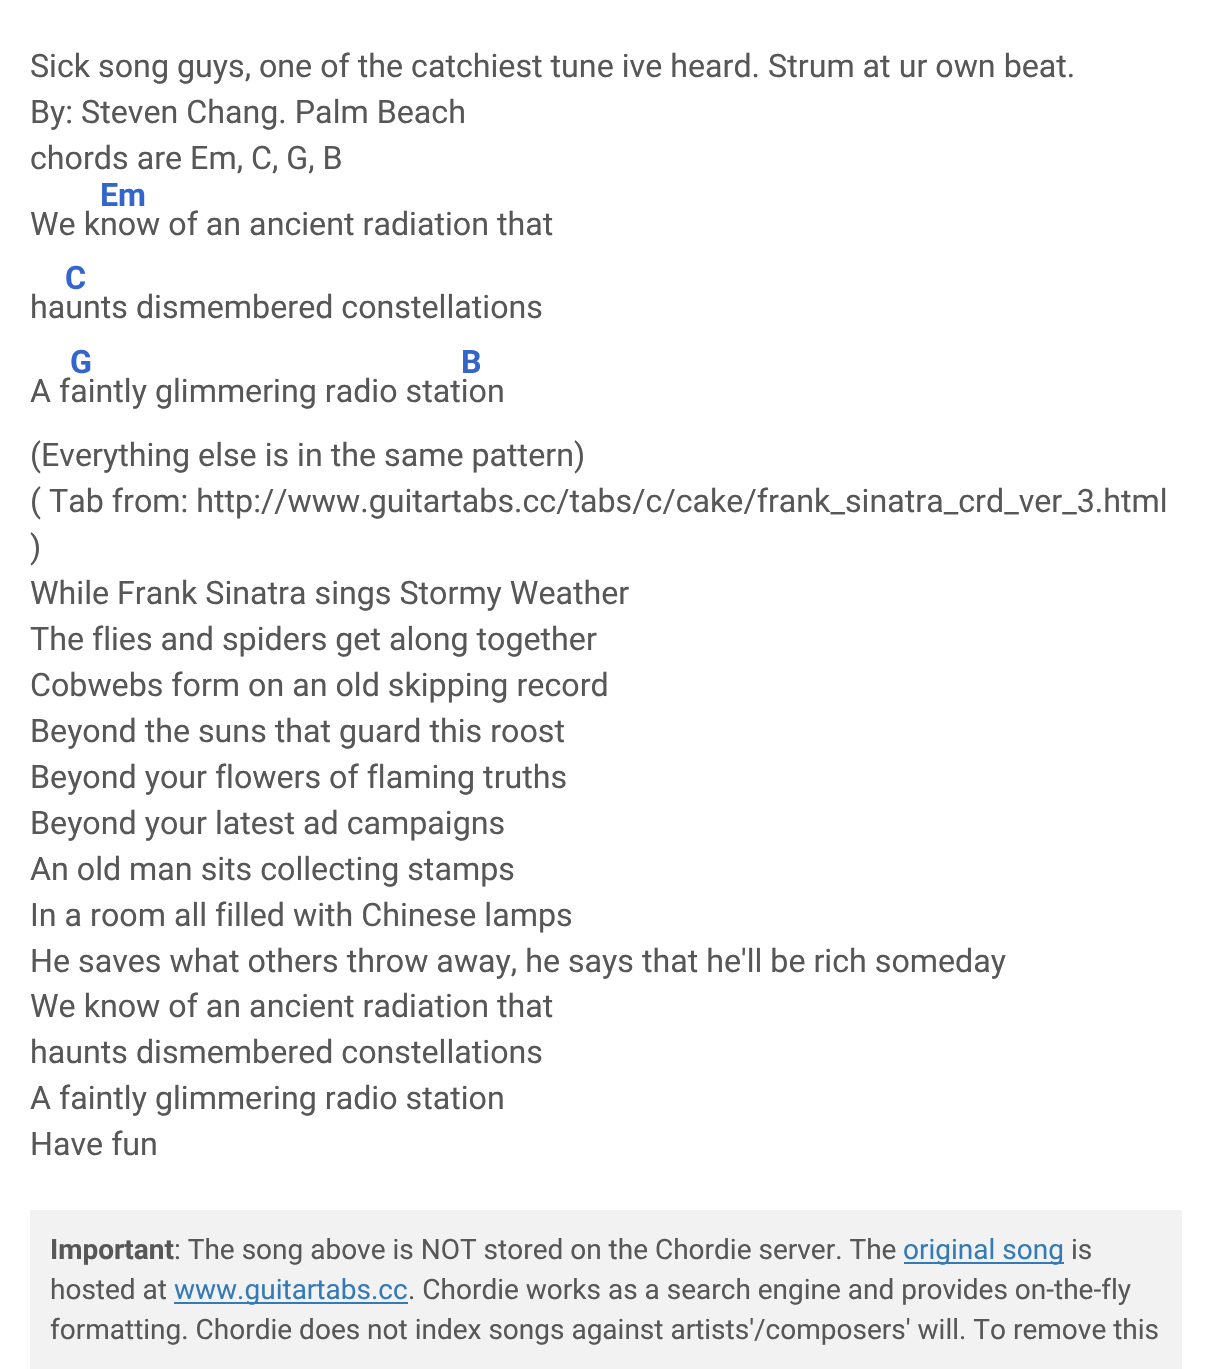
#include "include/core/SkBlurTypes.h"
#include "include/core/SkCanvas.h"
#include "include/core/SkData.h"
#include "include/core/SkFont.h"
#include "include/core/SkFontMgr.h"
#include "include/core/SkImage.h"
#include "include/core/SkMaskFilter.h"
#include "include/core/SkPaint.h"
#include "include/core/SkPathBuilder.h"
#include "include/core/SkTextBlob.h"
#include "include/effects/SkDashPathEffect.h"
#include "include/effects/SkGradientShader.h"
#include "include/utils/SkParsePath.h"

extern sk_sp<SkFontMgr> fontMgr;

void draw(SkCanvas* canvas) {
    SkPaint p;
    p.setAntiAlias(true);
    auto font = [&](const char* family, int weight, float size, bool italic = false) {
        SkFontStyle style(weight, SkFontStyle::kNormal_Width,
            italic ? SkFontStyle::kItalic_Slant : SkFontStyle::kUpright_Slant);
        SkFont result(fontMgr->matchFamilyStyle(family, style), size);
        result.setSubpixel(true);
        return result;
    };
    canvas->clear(0xFFFFFFFF);
    auto font1 = font("Roboto", 400, 32.2f);
    p.setColor(0xFF575757);
    {
        const struct { const char* s; float x, y; } items[] = {
            {"Sick song guys, one of the catchiest tune ive heard. Strum at ur own beat.", 30, 77},
            {"By: Steven Chang. Palm Beach", 30, 123},
            {"chords are Em, C, G, B", 30, 169},
        };
        for (auto [s, x, y] : items) {
            canvas->drawString(s, x, y, font1, p);
        }
    }
    auto font2 = font("Roboto", 700, 32.2f);
    p.setColor(0xFF3366CC);
    canvas->drawString("Em", 100, 206, font2, p);
    p.setColor(0xFF575757);
    canvas->drawString("We know of an ancient radiation that", 30, 235, font1, p);
    p.setColor(0xFF3366CC);
    canvas->drawString("C", 65, 289, font2, p);
    p.setColor(0xFF575757);
    canvas->drawString("haunts dismembered constellations", 30, 318, font1, p);
    p.setColor(0xFF3366CC);
    canvas->drawString("G", 70, 373, font2, p);
    canvas->drawString("B", 461, 373, font2, p);
    p.setColor(0xFF575757);
    {
        const struct { const char* s; float x, y; } items[] = {
            {"A faintly glimmering radio station", 30, 402},
            {"(Everything else is in the same pattern)", 30, 466},
            {"( Tab from: http://www.guitartabs.cc/tabs/c/cake/frank_sinatra_crd_ver_3.html", 30, 512},
            {")", 30, 558},
            {"While Frank Sinatra sings Stormy Weather", 30, 604},
            {"The flies and spiders get along together", 30, 650},
            {"Cobwebs form on an old skipping record", 30, 696},
            {"Beyond the suns that guard this roost", 30, 742},
            {"Beyond your flowers of flaming truths", 30, 788},
            {"Beyond your latest ad campaigns", 30, 834},
            {"An old man sits collecting stamps", 30, 880},
            {"In a room all filled with Chinese lamps", 30, 926},
            {"He saves what others throw away, he says that he'll be rich someday", 30, 972},
            {"We know of an ancient radiation that", 30, 1017},
            {"haunts dismembered constellations", 30, 1063},
            {"A faintly glimmering radio station", 30, 1109},
            {"Have fun", 30, 1155},
        };
        for (auto [s, x, y] : items) {
            canvas->drawString(s, x, y, font1, p);
        }
    }
    p.setColor(0xFFF2F2F2);
    canvas->drawRect(SkRect::MakeLTRB(30, 1210, 1182, 1369), p);
    auto font3 = font("Roboto", 700, 28);
    p.setColor(0xFF575757);
    canvas->drawString("Important", 50, 1259, font3, p);
    auto font4 = font("Roboto", 400, 28);
    canvas->drawString(": The song above is NOT stored on the Chordie server. The", 174, 1259, font4, p);
    p.setColor(0xFF337AB7);
    canvas->drawRect(SkRect::MakeLTRB(904, 1262, 1064, 1264), p);
    canvas->drawString("original song", 903, 1259, font4, p);
    p.setColor(0xFF575757);
    canvas->drawString("is", 1071, 1259, font4, p);
    canvas->drawString("hosted at", 50, 1299, font4, p);
    p.setColor(0xFF337AB7);
    canvas->drawRect(SkRect::MakeLTRB(174, 1302, 408, 1304), p);
    canvas->drawString("www.guitartabs.cc", 174, 1299, font4, p);
    p.setColor(0xFF575757);
    canvas->drawString(". Chordie works as a search engine and provides on-the-fly", 408, 1299, font4, p);
    canvas->drawString("formatting. Chordie does not index songs against artists'/composers' will. To remove this", 50, 1339, font4, p);
}
